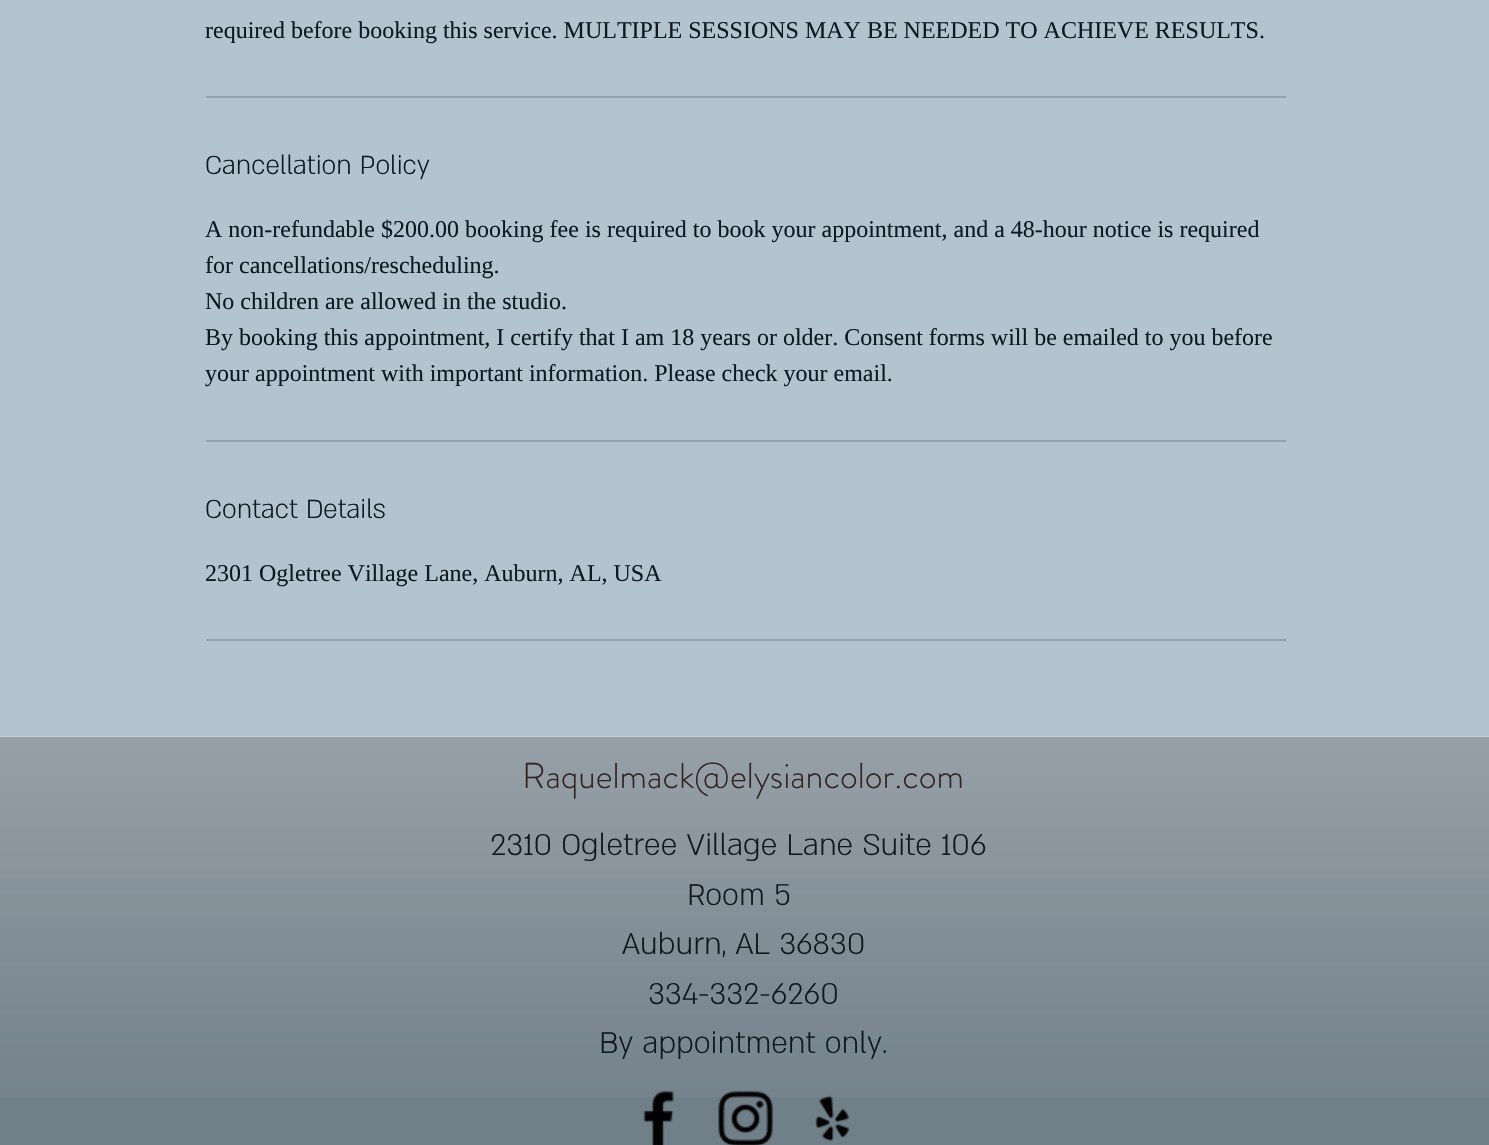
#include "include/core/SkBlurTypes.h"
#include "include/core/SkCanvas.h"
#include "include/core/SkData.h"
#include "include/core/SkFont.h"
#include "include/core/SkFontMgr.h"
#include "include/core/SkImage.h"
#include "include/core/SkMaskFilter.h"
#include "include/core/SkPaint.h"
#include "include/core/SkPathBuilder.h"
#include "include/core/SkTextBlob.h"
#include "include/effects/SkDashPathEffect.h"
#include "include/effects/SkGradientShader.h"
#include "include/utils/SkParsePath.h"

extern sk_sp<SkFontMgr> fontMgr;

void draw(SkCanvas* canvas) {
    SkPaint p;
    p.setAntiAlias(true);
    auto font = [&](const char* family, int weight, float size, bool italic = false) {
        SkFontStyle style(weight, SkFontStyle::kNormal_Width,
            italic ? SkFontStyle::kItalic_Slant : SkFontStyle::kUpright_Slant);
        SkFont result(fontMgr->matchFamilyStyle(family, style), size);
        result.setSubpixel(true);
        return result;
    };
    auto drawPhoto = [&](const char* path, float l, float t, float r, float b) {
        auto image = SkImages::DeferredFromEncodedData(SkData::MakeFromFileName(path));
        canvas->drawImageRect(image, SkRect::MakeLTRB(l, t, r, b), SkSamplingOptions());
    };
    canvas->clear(0xFFB3C4CF);
    auto font1 = font("Liberation Serif", 400, 24);
    p.setColor(0xFF0E1920);
    canvas->drawString("required before booking this service. MULTIPLE SESSIONS MAY BE NEEDED TO ACHIEVE RESULTS.", 205, 38, font1, p);
    p.setColor(0xFF92A2AC);
    canvas->drawRect(SkRect::MakeLTRB(206, 96, 1286, 98), p);
    auto font2 = font("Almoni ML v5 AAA", 300, 30);
    p.setColor(0xFF0E1920);
    canvas->drawString("Cancellation Policy", 205, 174, font2, p);
    {
        const struct { const char* s; float x, y; } items[] = {
            {"A non-refundable $200.00 booking fee is required to book your appointment, and a 48-hour notice is required", 205, 237},
            {"for cancellations/rescheduling.", 205, 273},
            {"No children are allowed in the studio.", 205, 309},
            {"By booking this appointment, I certify that I am 18 years or older. Consent forms will be emailed to you before", 205, 345},
            {"your appointment with important information. Please check your email.", 205, 381},
        };
        for (auto [s, x, y] : items) {
            canvas->drawString(s, x, y, font1, p);
        }
    }
    p.setColor(0xFF92A2AC);
    canvas->drawRect(SkRect::MakeLTRB(206, 440, 1286, 442), p);
    p.setColor(0xFF0E1920);
    canvas->drawString("Contact Details", 205, 518, font2, p);
    canvas->drawString("2301 Ogletree Village Lane, Auburn, AL, USA", 205, 581, font1, p);
    p.setColor(0xFF92A2AC);
    canvas->drawRect(SkRect::MakeLTRB(206, 639, 1286, 641), p);
    p.setColor(0xFF717F89);
    canvas->drawRect(SkRect::MakeLTRB(0, 737, 1489, 1145), p);
    drawPhoto("media/1.png", 0, 736, 1489, 1097);
    auto font3 = font("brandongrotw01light", 300, 36);
    p.setColor(0xFF332321);
    canvas->drawString("Raquelmack@elysiancolor.com", 522, 788, font3, p);
    auto font4 = font("Almoni ML v5 AAA", 300, 34.5f);
    p.setColor(0xFF0E1920);
    {
        const struct { const char* s; float x, y; } items[] = {
            {"2310 Ogletree Village Lane Suite 106", 490, 855},
            {"Room 5", 687, 905},
            {"Auburn, AL 36830", 622, 954},
            {"334-332-6260", 648, 1004},
            {"By appointment only.", 599, 1053},
        };
        for (auto [s, x, y] : items) {
            canvas->drawString(s, x, y, font4, p);
        }
    }
    drawPhoto("media/2.png", 643, 1091, 674, 1145);
    drawPhoto("media/3.png", 718, 1091, 773, 1145);
    drawPhoto("media/4.png", 815, 1095, 850, 1142);
}
